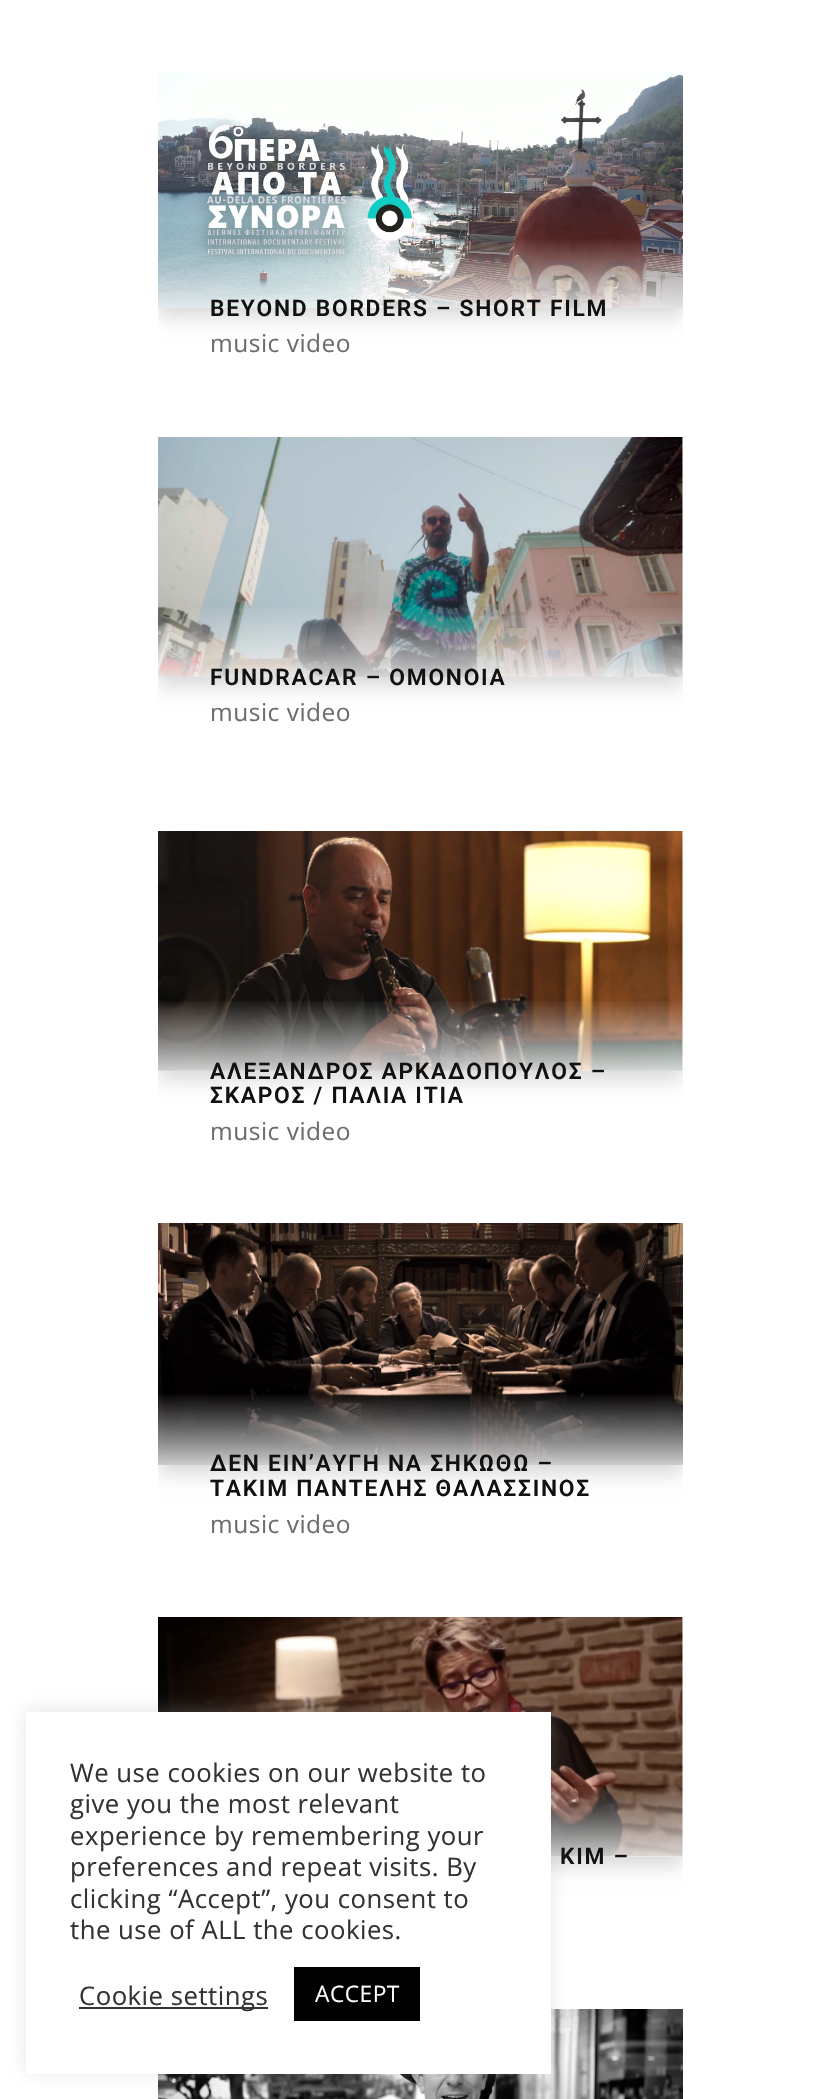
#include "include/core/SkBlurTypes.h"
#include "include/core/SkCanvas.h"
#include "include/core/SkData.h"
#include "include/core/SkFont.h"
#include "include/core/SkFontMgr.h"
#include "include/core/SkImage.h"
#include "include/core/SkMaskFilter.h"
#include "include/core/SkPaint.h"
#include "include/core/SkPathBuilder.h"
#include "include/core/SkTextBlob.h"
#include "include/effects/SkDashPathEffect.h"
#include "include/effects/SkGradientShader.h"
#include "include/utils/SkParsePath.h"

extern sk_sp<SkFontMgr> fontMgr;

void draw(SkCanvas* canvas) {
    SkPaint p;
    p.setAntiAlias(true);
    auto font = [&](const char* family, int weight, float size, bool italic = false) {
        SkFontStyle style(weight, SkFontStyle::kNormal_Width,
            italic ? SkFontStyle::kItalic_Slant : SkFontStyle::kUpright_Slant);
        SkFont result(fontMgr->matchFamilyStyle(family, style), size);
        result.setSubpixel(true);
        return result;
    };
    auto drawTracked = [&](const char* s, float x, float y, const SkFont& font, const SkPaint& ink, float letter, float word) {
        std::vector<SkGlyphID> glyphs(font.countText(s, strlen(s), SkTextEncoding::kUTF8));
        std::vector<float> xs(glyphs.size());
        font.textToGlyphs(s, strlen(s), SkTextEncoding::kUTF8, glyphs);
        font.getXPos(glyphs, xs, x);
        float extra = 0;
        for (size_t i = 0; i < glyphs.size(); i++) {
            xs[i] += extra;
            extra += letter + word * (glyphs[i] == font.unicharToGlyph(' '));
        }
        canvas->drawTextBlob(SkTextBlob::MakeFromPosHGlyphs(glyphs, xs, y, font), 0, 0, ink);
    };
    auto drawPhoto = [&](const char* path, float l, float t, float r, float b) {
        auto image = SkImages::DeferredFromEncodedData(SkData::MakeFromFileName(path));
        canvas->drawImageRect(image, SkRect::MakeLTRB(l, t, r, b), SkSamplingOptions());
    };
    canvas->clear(0xFFFFFFFF);
    canvas->save();
    canvas->clipRect(SkRect::MakeLTRB(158, 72, 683, 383));
    p.setColor(0x26000000);
    p.setMaskFilter(SkMaskFilter::MakeBlur(kNormal_SkBlurStyle, 9));
    canvas->drawRect(SkRect::MakeLTRB(158, 81, 683, 317), p);
    p.setMaskFilter(nullptr);
    canvas->restore();
    drawPhoto("media/1.png", 158, 72, 683, 308);
    auto font1 = font("Roboto", 600, 22.75f);
    p.setColor(0xFF111111);
    drawTracked("BEYOND BORDERS – SHORT FILM", 210, 316, font1, p, 1.75f, 0);
    auto font2 = font("Open Sans", 400, 24.5f);
    p.setColor(0xFF6D6D6D);
    drawTracked("music video", 210, 352, font2, p, 0.5f, 0);
    canvas->save();
    canvas->clipRect(SkRect::MakeLTRB(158, 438, 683, 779));
    p.setColor(0x26000000);
    p.setMaskFilter(SkMaskFilter::MakeBlur(kNormal_SkBlurStyle, 9));
    canvas->drawRect(SkRect::MakeLTRB(158, 446, 683, 686), p);
    p.setMaskFilter(nullptr);
    canvas->restore();
    drawPhoto("media/2.png", 158, 437, 683, 677);
    {
        const SkColor colors[] = {0xCCFFFFFF, 0x00FFFFFF};
        const float stops[] = {0, 1};
        const SkPoint ends[] = {{420, 677}, {420, 606}};
        p.setShader(SkGradientShader::MakeLinear(ends, colors, stops, 2, SkTileMode::kClamp));
        p.setAlpha(255);
    }
    canvas->drawRect(SkRect::MakeLTRB(158, 608, 683, 677), p);
    p.setShader(nullptr);
    p.setColor(0xFF111111);
    drawTracked("FUNDRACAR – ΟΜΟΝΟΙΑ", 210, 685, font1, p, 1.75f, 0);
    p.setColor(0xFF6D6D6D);
    drawTracked("music video", 210, 721, font2, p, 0.5f, 0);
    canvas->save();
    canvas->clipRect(SkRect::MakeLTRB(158, 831, 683, 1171));
    p.setColor(0x26000000);
    p.setMaskFilter(SkMaskFilter::MakeBlur(kNormal_SkBlurStyle, 9));
    canvas->drawRect(SkRect::MakeLTRB(158, 840, 683, 1080), p);
    p.setMaskFilter(nullptr);
    canvas->restore();
    drawPhoto("media/3.png", 158, 831, 683, 1071);
    {
        const SkColor colors[] = {0xCCFFFFFF, 0x00FFFFFF};
        const float stops[] = {0, 1};
        const SkPoint ends[] = {{420, 1071}, {420, 999}};
        p.setShader(SkGradientShader::MakeLinear(ends, colors, stops, 2, SkTileMode::kClamp));
        p.setAlpha(255);
    }
    canvas->drawRect(SkRect::MakeLTRB(158, 1001, 683, 1071), p);
    p.setShader(nullptr);
    p.setColor(0xFF111111);
    drawTracked("ΑΛΕΞΑΝΔΡΟΣ ΑΡΚΑΔΟΠΟΥΛΟΣ –", 210, 1079, font1, p, 1.75f, 0);
    drawTracked("ΣΚΑΡΟΣ / ΠΑΛΙΑ ΙΤΙΑ", 210, 1103, font1, p, 1.75f, 0);
    p.setColor(0xFF6D6D6D);
    drawTracked("music video", 210, 1140, font2, p, 0.5f, 0);
    canvas->save();
    canvas->clipRect(SkRect::MakeLTRB(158, 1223, 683, 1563));
    p.setColor(0x26000000);
    p.setMaskFilter(SkMaskFilter::MakeBlur(kNormal_SkBlurStyle, 9));
    canvas->drawRect(SkRect::MakeLTRB(158, 1232, 683, 1474), p);
    p.setMaskFilter(nullptr);
    canvas->restore();
    drawPhoto("media/4.png", 158, 1223, 683, 1465);
    p.setColor(0xFF111111);
    drawTracked("ΔΕΝ ΕΙΝ’ΑΥΓΗ ΝΑ ΣΗΚΩΘΩ –", 210, 1471, font1, p, 1.75f, 0);
    drawTracked("ΤΑΚΙΜ ΠΑΝΤΕΛΗΣ ΘΑΛΑΣΣΙΝΟΣ", 210, 1496, font1, p, 1.75f, 0);
    p.setColor(0xFF6D6D6D);
    drawTracked("music video", 210, 1533, font2, p, 0.5f, 0);
    canvas->save();
    canvas->clipRect(SkRect::MakeLTRB(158, 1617, 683, 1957));
    p.setColor(0x26000000);
    p.setMaskFilter(SkMaskFilter::MakeBlur(kNormal_SkBlurStyle, 9));
    canvas->drawRect(SkRect::MakeLTRB(158, 1626, 683, 1866), p);
    p.setMaskFilter(nullptr);
    canvas->restore();
    drawPhoto("media/5.png", 158, 1617, 683, 1857);
    {
        const SkColor colors[] = {0xCCFFFFFF, 0x00FFFFFF};
        const float stops[] = {0, 1};
        const SkPoint ends[] = {{420, 1857}, {420, 1785}};
        p.setShader(SkGradientShader::MakeLinear(ends, colors, stops, 2, SkTileMode::kClamp));
        p.setAlpha(255);
    }
    canvas->drawRect(SkRect::MakeLTRB(551, 1787, 683, 1857), p);
    p.setShader(nullptr);
    p.setColor(0xFF111111);
    drawTracked("KIM –", 560, 1864, font1, p, 1.75f, 0);
    drawPhoto("media/6.png", 158, 2009, 683, 2099);
    p.setColor(0x4DACABAB);
    p.setMaskFilter(SkMaskFilter::MakeBlur(kNormal_SkBlurStyle, 9));
    canvas->drawRect(SkRect::MakeLTRB(26, 1710, 551, 2072), p);
    p.setMaskFilter(nullptr);
    p.setColor(0xFFFFFFFF);
    canvas->drawRect(SkRect::MakeLTRB(26, 1712, 551, 2074), p);
    auto font3 = font("Open Sans", 400, 25.7f);
    p.setColor(0xFF333333);
    {
        const struct { const char* s; float x, y; } items[] = {
            {"We use cookies on our website to", 70, 1782},
            {"give you the most relevant", 70, 1813},
            {"experience by remembering your", 70, 1845},
            {"preferences and repeat visits. By", 70, 1876},
            {"clicking “Accept”, you consent to", 70, 1908},
            {"the use of ALL the cookies.", 70, 1939},
        };
        for (auto [s, x, y] : items) {
            drawTracked(s, x, y, font3, p, 0.5f, 0);
        }
    }
    canvas->drawRect(SkRect::MakeLTRB(79, 2007, 268, 2009), p);
    drawTracked("Cookie settings", 79, 2005, font3, p, 0.5f, 0);
    p.setColor(0xFF000000);
    canvas->drawRect(SkRect::MakeLTRB(294, 1967, 420, 2021), p);
    auto font4 = font("Open Sans", 400, 22.75f);
    p.setColor(0xFFFFFFFF);
    drawTracked("ACCEPT", 315, 2002, font4, p, 0.5f, 0);
}
